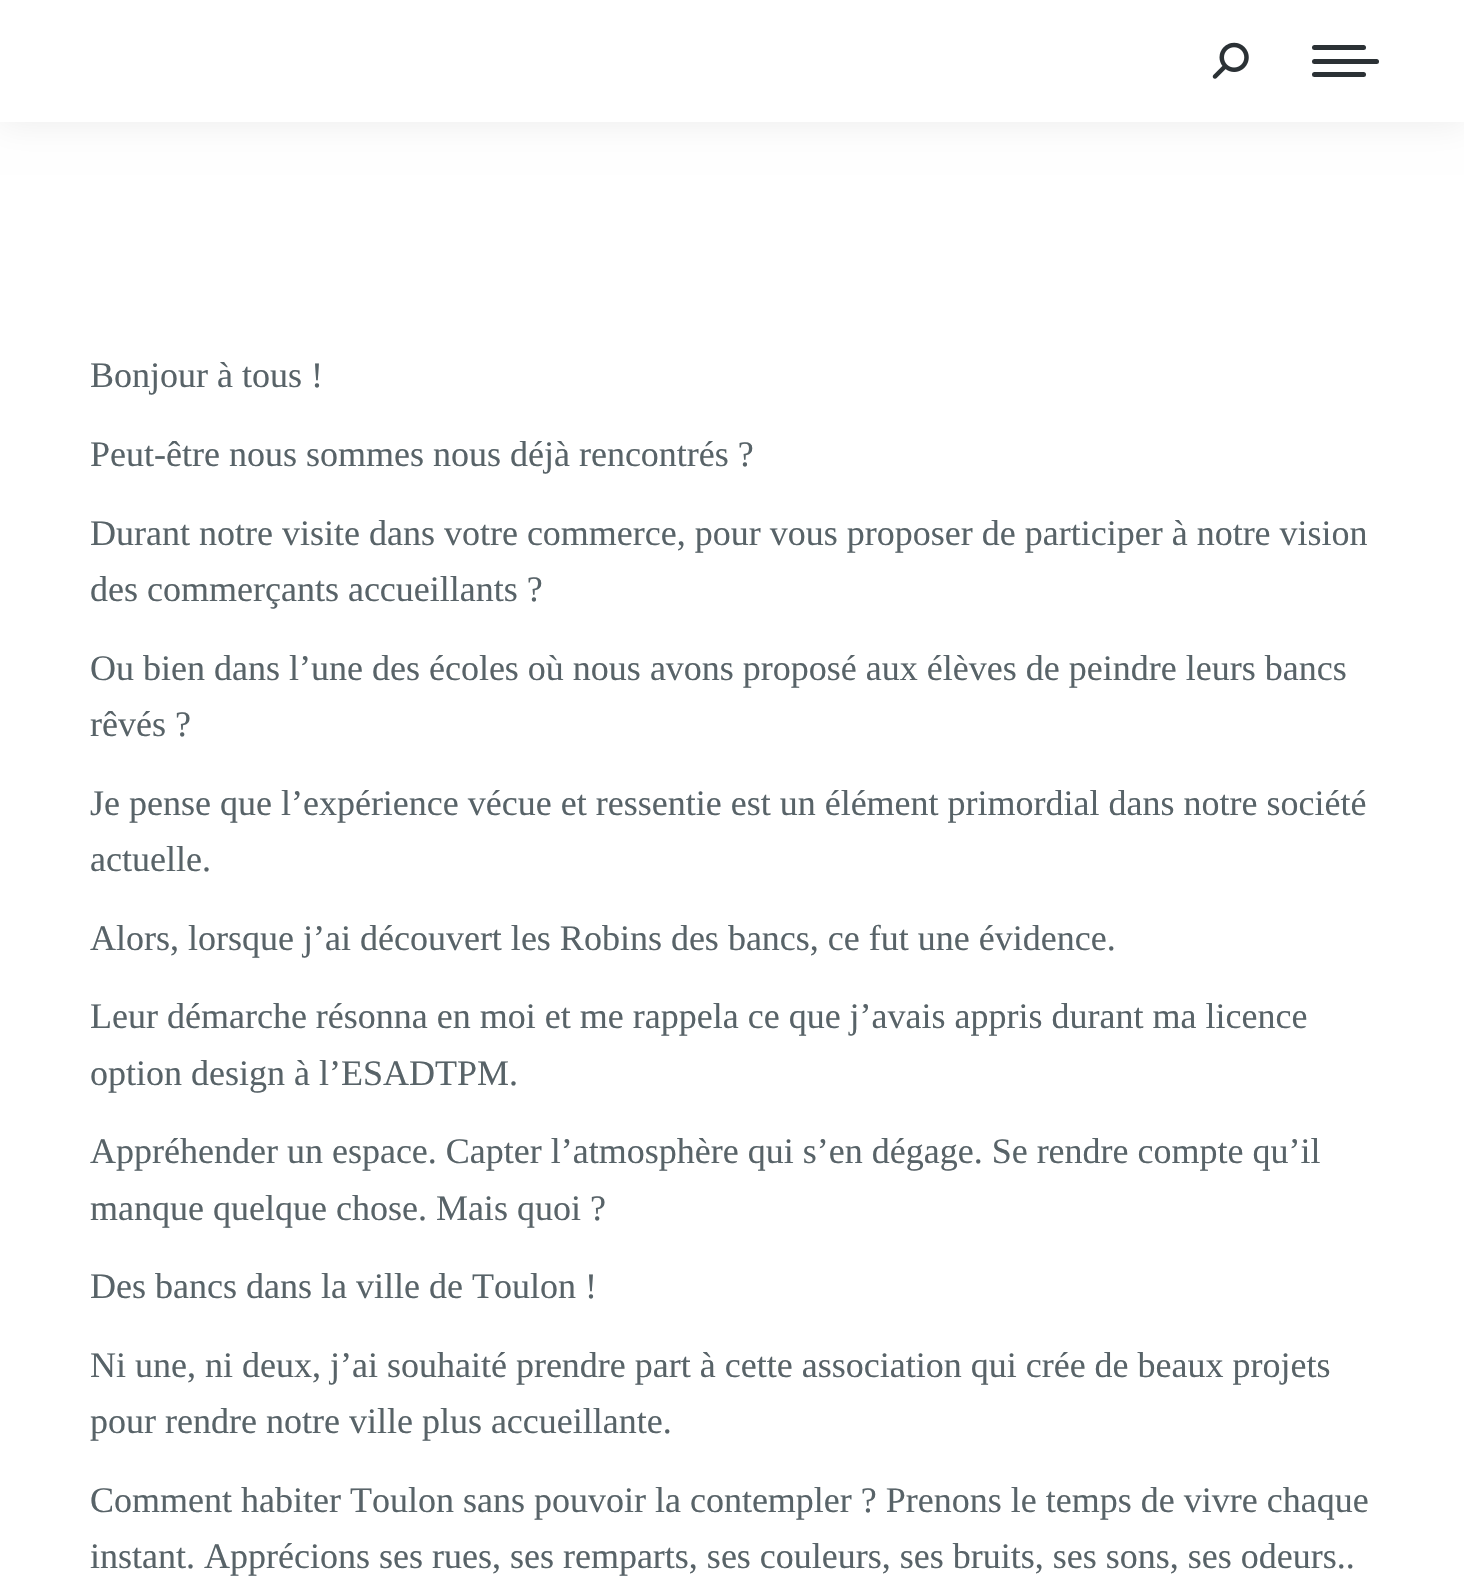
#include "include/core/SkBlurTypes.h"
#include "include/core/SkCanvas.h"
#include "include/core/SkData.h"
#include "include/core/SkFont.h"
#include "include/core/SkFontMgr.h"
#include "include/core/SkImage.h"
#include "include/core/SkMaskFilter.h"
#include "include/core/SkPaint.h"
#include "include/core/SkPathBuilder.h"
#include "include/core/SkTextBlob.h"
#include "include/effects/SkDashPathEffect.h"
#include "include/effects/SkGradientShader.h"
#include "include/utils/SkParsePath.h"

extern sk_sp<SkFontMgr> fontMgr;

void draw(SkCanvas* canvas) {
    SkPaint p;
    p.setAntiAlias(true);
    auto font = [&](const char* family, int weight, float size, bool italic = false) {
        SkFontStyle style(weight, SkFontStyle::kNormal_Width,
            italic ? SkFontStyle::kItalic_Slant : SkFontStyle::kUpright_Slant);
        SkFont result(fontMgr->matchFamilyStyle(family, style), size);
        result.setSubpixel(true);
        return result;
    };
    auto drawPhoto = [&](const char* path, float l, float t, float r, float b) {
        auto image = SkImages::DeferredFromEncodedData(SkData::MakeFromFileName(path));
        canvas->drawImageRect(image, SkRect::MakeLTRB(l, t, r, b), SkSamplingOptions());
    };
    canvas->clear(0xFFFFFFFF);
    p.setColor(0x12000000);
    p.setMaskFilter(SkMaskFilter::MakeBlur(kNormal_SkBlurStyle, 17));
    canvas->drawRect(SkRect::MakeLTRB(-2, -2, 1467, 124), p);
    p.setMaskFilter(nullptr);
    p.setColor(0xFFFFFFFF);
    canvas->drawRect(SkRect::MakeLTRB(0, 0, 1464, 122), p);
    drawPhoto("media/1.png", 1212, 42, 1249, 79);
    p.setColor(0xFF2B3135);
    canvas->drawRoundRect(SkRect::MakeLTRB(1312, 45, 1366, 50), 2.5f, 2.5f, p);
    canvas->drawRoundRect(SkRect::MakeLTRB(1312, 59, 1379, 64), 2.5f, 2.5f, p);
    canvas->drawRoundRect(SkRect::MakeLTRB(1312, 72, 1366, 77), 2.5f, 2.5f, p);
    auto font1 = font("Liberation Serif", 400, 36);
    p.setColor(0xFF586368);
    {
        const struct { const char* s; float x, y; } items[] = {
            {"Bonjour à tous !", 90, 387},
            {"Peut-être nous sommes nous déjà rencontrés ?", 90, 466},
            {"Durant notre visite dans votre commerce, pour vous proposer de participer à notre vision", 90, 545},
            {"des commerçants accueillants ?", 90, 601},
            {"Ou bien dans l’une des écoles où nous avons proposé aux élèves de peindre leurs bancs", 90, 680},
            {"rêvés ?", 90, 736},
            {"Je pense que l’expérience vécue et ressentie est un élément primordial dans notre société", 90, 815},
            {"actuelle.", 90, 871},
            {"Alors, lorsque j’ai découvert les Robins des bancs, ce fut une évidence.", 90, 950},
            {"Leur démarche résonna en moi et me rappela ce que j’avais appris durant ma licence", 90, 1028},
            {"option design à l’ESADTPM.", 90, 1085},
            {"Appréhender un espace. Capter l’atmosphère qui s’en dégage. Se rendre compte qu’il", 90, 1163},
            {"manque quelque chose. Mais quoi ?", 90, 1220},
            {"Des bancs dans la ville de Toulon !", 90, 1298},
            {"Ni une, ni deux, j’ai souhaité prendre part à cette association qui crée de beaux projets", 90, 1377},
            {"pour rendre notre ville plus accueillante.", 90, 1433},
            {"Comment habiter Toulon sans pouvoir la contempler ? Prenons le temps de vivre chaque", 90, 1512},
            {"instant. Apprécions ses rues, ses remparts, ses couleurs, ses bruits, ses sons, ses odeurs..", 90, 1568},
        };
        for (auto [s, x, y] : items) {
            canvas->drawString(s, x, y, font1, p);
        }
    }
}
